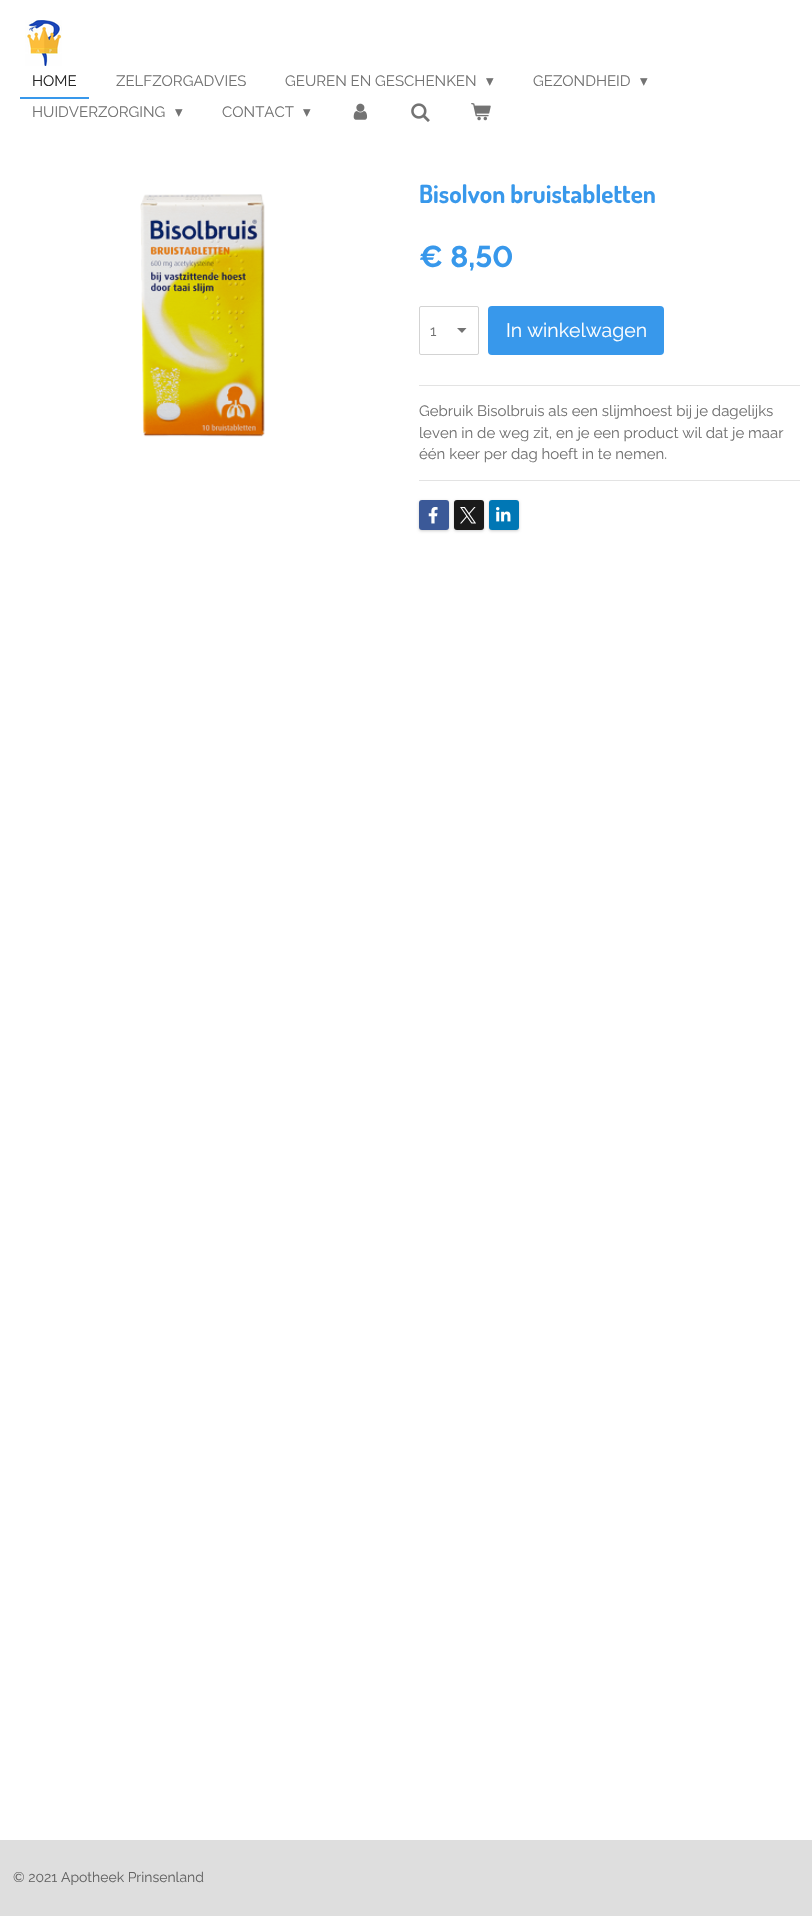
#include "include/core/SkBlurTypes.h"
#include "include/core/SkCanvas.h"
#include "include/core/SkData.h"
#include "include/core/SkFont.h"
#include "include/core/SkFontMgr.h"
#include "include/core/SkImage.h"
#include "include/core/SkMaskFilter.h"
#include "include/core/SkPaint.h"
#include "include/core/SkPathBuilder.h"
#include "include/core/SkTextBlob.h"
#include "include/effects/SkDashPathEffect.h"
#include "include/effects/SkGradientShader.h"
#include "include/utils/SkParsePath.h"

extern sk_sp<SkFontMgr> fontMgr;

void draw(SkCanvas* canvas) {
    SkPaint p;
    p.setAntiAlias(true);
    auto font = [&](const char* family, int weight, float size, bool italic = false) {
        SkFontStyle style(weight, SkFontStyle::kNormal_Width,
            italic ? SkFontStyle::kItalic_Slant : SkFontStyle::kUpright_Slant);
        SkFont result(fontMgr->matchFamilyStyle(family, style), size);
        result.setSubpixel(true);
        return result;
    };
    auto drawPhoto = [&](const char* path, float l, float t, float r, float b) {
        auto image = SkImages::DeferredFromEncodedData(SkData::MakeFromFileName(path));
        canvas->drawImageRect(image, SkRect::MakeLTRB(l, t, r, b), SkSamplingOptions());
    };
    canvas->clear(0xFFFFFFFF);
    drawPhoto("media/1.png", 25, 20, 62, 66);
    p.setColor(0xFF3898EB);
    canvas->drawRect(SkRect::MakeLTRB(20, 97, 89, 99), p);
    auto font1 = font("Raleway", 400, 15);
    p.setColor(0xFF262626);
    canvas->drawString("HOME", 32, 86, font1, p);
    p.setColor(0xFF737373);
    canvas->drawString("ZELFZORGADVIES", 116, 86, font1, p);
    canvas->drawString("GEUREN EN GESCHENKEN", 285, 86, font1, p);
    auto font2 = font("DejaVu Sans", 400, 15);
    canvas->drawString("▾", 486, 86, font2, p);
    canvas->drawString("GEZONDHEID", 533, 86, font1, p);
    canvas->drawString("▾", 640, 86, font2, p);
    canvas->drawString("HUIDVERZORGING", 32, 117, font1, p);
    canvas->drawString("▾", 175, 117, font2, p);
    canvas->drawString("CONTACT", 222, 117, font1, p);
    canvas->drawString("▾", 303, 117, font2, p);
    drawPhoto("media/2.png", 353, 103, 368, 120);
    drawPhoto("media/3.png", 411, 103, 430, 122);
    drawPhoto("media/4.png", 471, 103, 491, 121);
    drawPhoto("media/5.png", 140, 194, 265, 437);
    auto font3 = font("Dosis", 700, 25);
    p.setColor(0xFF3898EB);
    canvas->drawString("Bisolvon bruistabletten", 419, 203, font3, p);
    auto font4 = font("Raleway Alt", 700, 30);
    canvas->drawString("€ 8,50", 419, 267, font4, p);
    p.setColor(0xFF737373);
    canvas->drawPath(SkPathBuilder().moveTo(462, 333).lineTo(457, 328).lineTo(466.5f, 328).close().detach(), p);
    p.setStyle(SkPaint::kStroke_Style);
    p.setStrokeWidth(1);
    p.setColor(0xFFD3D3D3);
    canvas->drawRoundRect(SkRect::MakeLTRB(419.5f, 306.5f, 478.5f, 354.5f), 1.5f, 1.5f, p);
    p.setStyle(SkPaint::kFill_Style);
    p.setColor(0xFF737373);
    canvas->drawString("1", 430, 336, font1, p);
    p.setColor(0xFF3898EB);
    canvas->drawRoundRect(SkRect::MakeLTRB(488, 306, 664, 355), 4, 4, p);
    auto font5 = font("Raleway", 400, 19.5f);
    p.setColor(0xFFFFFFFF);
    canvas->drawString("In winkelwagen", 506, 337, font5, p);
    p.setColor(0xFFE3E3E3);
    canvas->drawRect(SkRect::MakeLTRB(419, 385, 800, 386), p);
    p.setColor(0xFF737373);
    {
        const struct { const char* s; float x, y; } items[] = {
            {"Gebruik Bisolbruis als een slijmhoest bij je dagelijks", 419, 416},
            {"leven in de weg zit, en je een product wil dat je maar", 419, 438},
            {"één keer per dag hoeft in te nemen.", 419, 459},
        };
        for (auto [s, x, y] : items) {
            canvas->drawString(s, x, y, font1, p);
        }
    }
    p.setColor(0xFFE3E3E3);
    canvas->drawRect(SkRect::MakeLTRB(419, 480, 800, 481), p);
    p.setColor(0x33000000);
    p.setMaskFilter(SkMaskFilter::MakeBlur(kNormal_SkBlurStyle, 1.5f));
    canvas->drawRoundRect(SkRect::MakeLTRB(419, 501, 449, 531), 3, 3, p);
    p.setMaskFilter(nullptr);
    p.setColor(0xFF3B5998);
    canvas->drawRoundRect(SkRect::MakeLTRB(419, 500, 449, 530), 3, 3, p);
    drawPhoto("media/6.png", 428, 507, 438, 524);
    p.setColor(0x33000000);
    p.setMaskFilter(SkMaskFilter::MakeBlur(kNormal_SkBlurStyle, 1.5f));
    canvas->drawRoundRect(SkRect::MakeLTRB(454, 501, 484, 531), 3, 3, p);
    p.setMaskFilter(nullptr);
    p.setColor(0xFF1A1A1A);
    canvas->drawRoundRect(SkRect::MakeLTRB(454, 500, 484, 530), 3, 3, p);
    drawPhoto("media/7.png", 460, 507, 476, 524);
    p.setColor(0x33000000);
    p.setMaskFilter(SkMaskFilter::MakeBlur(kNormal_SkBlurStyle, 1.5f));
    canvas->drawRoundRect(SkRect::MakeLTRB(489, 501, 519, 531), 3, 3, p);
    p.setMaskFilter(nullptr);
    p.setColor(0xFF0077B5);
    canvas->drawRoundRect(SkRect::MakeLTRB(489, 500, 519, 530), 3, 3, p);
    drawPhoto("media/8.png", 496, 507, 511, 522);
    p.setColor(0xFFDEDEDE);
    canvas->drawRect(SkRect::MakeLTRB(0, 1840, 812, 1916), p);
    auto font6 = font("Raleway", 400, 14);
    p.setColor(0xFF646464);
    canvas->drawString("© 2021 Apotheek Prinsenland", 13, 1882, font6, p);
}
